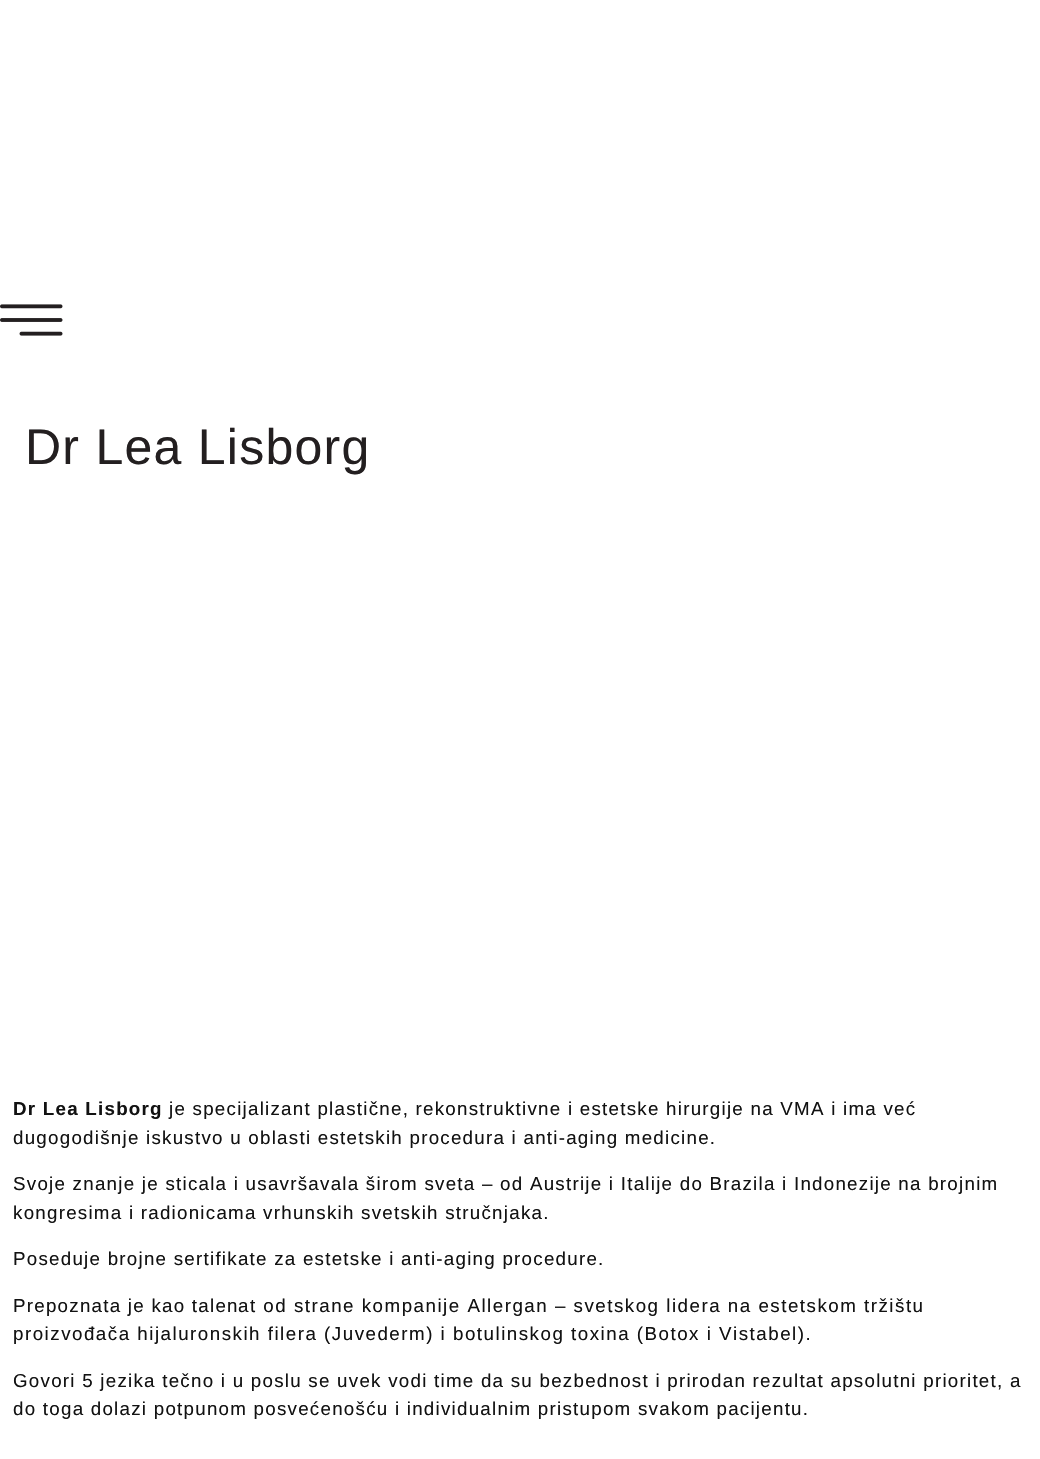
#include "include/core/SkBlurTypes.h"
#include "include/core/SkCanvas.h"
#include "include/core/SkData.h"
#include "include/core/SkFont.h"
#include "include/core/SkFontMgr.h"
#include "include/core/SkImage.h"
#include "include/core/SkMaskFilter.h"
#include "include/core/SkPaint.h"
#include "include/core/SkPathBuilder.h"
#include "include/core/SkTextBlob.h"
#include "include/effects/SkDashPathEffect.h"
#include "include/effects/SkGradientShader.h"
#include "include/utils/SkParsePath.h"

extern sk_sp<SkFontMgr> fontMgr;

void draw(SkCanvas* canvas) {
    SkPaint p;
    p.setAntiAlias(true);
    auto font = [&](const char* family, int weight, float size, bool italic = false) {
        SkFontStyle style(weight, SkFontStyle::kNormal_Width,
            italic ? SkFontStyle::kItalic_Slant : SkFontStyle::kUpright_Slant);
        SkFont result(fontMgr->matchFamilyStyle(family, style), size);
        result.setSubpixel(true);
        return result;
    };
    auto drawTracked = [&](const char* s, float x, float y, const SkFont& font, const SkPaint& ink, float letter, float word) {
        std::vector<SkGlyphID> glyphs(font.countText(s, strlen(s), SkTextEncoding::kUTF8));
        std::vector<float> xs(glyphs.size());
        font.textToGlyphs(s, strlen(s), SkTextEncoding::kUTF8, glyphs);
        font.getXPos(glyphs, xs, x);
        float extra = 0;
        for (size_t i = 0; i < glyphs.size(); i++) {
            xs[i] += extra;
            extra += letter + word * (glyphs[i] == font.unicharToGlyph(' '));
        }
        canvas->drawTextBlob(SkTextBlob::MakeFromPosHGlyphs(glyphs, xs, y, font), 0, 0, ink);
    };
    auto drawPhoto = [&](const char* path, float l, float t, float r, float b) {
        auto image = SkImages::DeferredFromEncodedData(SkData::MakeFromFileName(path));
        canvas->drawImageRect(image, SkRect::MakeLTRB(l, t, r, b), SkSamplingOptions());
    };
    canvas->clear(0xFFFFFFFF);
    drawPhoto("media/1.png", 0, 304, 63, 336);
    auto font1 = font("Liberation Sans", 400, 50);
    p.setColor(0xFF231F20);
    drawTracked("Dr Lea Lisborg", 25, 464, font1, p, 1.25f, 0);
    auto font2 = font("Liberation Sans", 700, 18.75f);
    p.setColor(0xFF121212);
    drawTracked("Dr Lea Lisborg", 13, 1115, font2, p, 1.25f, 0);
    auto font3 = font("Liberation Sans", 400, 18.75f);
    {
        const struct { const char* s; float x, y; } items[] = {
            {"je specijalizant plastične, rekonstruktivne i estetske hirurgije na VMA i ima već", 169, 1115},
            {"dugogodišnje iskustvo u oblasti estetskih procedura i anti-aging medicine.", 13, 1144},
            {"Svoje znanje je sticala i usavršavala širom sveta – od Austrije i Italije do Brazila i Indonezije na brojnim", 13, 1190},
            {"kongresima i radionicama vrhunskih svetskih stručnjaka.", 13, 1219},
            {"Poseduje brojne sertifikate za estetske i anti-aging procedure.", 13, 1265},
            {"Prepoznata je kao talen", 13, 1312},
        };
        for (auto [s, x, y] : items) {
            drawTracked(s, x, y, font3, p, 1.25f, 0);
        }
    }
    drawTracked("at od strane kompanije Allergan – svetskog lidera na estetskom tržištu", 238, 1312, font3, p, 1.5f, 0);
    drawTracked("proizvođača hijaluronskih filera (Juvederm) i botulinskog toxina (Botox i Vistabel).", 13, 1340, font3, p, 1.5f, 0);
    drawTracked("Govori 5 jezika tečno i u poslu se uvek vodi time da su bezbednost i prirodan rezultat apsolutni prioritet, a", 13, 1387, font3, p, 1.25f, 0);
    drawTracked("do toga dolazi potpunom posvećenošću i individualnim pristupom svakom pacijentu.", 13, 1415, font3, p, 1.25f, 0);
}
